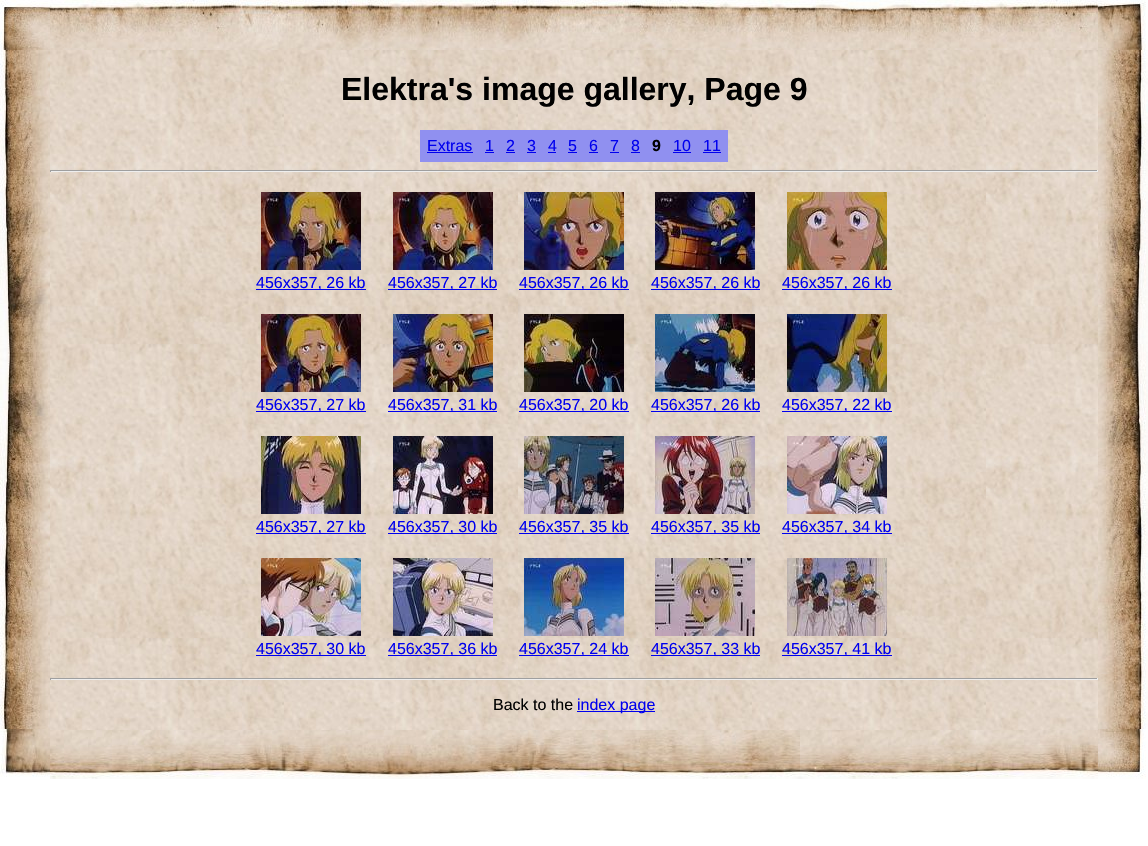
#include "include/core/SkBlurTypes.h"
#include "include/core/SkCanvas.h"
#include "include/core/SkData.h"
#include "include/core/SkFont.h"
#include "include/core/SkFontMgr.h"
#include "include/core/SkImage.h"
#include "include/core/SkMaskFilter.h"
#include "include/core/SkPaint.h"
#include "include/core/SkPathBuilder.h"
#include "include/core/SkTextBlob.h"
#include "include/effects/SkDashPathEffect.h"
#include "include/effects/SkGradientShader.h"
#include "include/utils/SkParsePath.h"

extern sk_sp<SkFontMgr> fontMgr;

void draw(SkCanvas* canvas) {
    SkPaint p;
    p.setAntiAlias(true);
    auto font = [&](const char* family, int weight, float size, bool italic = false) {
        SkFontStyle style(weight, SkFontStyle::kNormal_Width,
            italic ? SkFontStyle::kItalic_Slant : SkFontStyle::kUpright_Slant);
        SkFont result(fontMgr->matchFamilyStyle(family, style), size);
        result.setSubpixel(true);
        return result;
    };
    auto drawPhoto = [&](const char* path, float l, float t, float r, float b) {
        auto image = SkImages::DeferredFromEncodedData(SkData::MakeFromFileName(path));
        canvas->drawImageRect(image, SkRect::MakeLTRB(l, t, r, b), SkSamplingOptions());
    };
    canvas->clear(0xFFFFFFFF);
    drawPhoto("media/1.png", 50, 0, 1098, 50);
    drawPhoto("media/2.png", 0, 50, 50, 729);
    drawPhoto("media/3.png", 1098, 50, 1148, 729);
    drawPhoto("media/4.png", 50, 730, 1098, 779);
    drawPhoto("media/5.png", 50, 50, 1098, 730);
    drawPhoto("media/6.png", 0, 0, 50, 50);
    drawPhoto("media/7.png", 1098, 0, 1148, 50);
    auto font1 = font("Liberation Sans", 700, 32);
    p.setColor(0xFF000000);
    canvas->drawString("Elektra's image gallery, Page 9", 341, 100, font1, p);
    p.setColor(0xFF9090F0);
    canvas->drawRect(SkRect::MakeLTRB(420, 130, 728, 162), p);
    auto font2 = font("Liberation Sans", 400, 16);
    p.setColor(0xFF0000EE);
    canvas->drawString("Extras", 427, 151, font2, p);
    canvas->drawRect(SkRect::MakeLTRB(427, 152, 473, 153), p);
    canvas->drawString("1", 485, 151, font2, p);
    canvas->drawRect(SkRect::MakeLTRB(485, 152, 494, 153), p);
    canvas->drawString("2", 506, 151, font2, p);
    canvas->drawRect(SkRect::MakeLTRB(506, 152, 515, 153), p);
    canvas->drawString("3", 527, 151, font2, p);
    canvas->drawRect(SkRect::MakeLTRB(527, 152, 536, 153), p);
    canvas->drawString("4", 548, 151, font2, p);
    canvas->drawRect(SkRect::MakeLTRB(548, 152, 556, 153), p);
    canvas->drawString("5", 568, 151, font2, p);
    canvas->drawRect(SkRect::MakeLTRB(568, 152, 577, 153), p);
    canvas->drawString("6", 589, 151, font2, p);
    canvas->drawRect(SkRect::MakeLTRB(589, 152, 598, 153), p);
    canvas->drawString("7", 610, 151, font2, p);
    canvas->drawRect(SkRect::MakeLTRB(610, 152, 619, 153), p);
    canvas->drawString("8", 631, 151, font2, p);
    canvas->drawRect(SkRect::MakeLTRB(631, 152, 640, 153), p);
    auto font3 = font("Liberation Sans", 700, 16);
    p.setColor(0xFF000000);
    canvas->drawString("9", 652, 151, font3, p);
    p.setColor(0xFF0000EE);
    canvas->drawString("10", 673, 151, font2, p);
    canvas->drawRect(SkRect::MakeLTRB(673, 152, 691, 153), p);
    canvas->drawString("11", 703, 151, font2, p);
    {
        const struct { float l, t, r, b; SkColor color; } items[] = {
            {703, 152, 721, 153, 0xFF0000EE},
            {50, 170, 1098, 171, 0xFF9F9F9F},
            {1097, 170, 1098, 172, 0xFFEEEEEE},
            {50, 171, 1098, 172, 0xFFEEEEEE},
            {50, 170, 51, 172, 0xFF9F9F9F},
        };
        for (auto [l, t, r, b, color] : items) {
            p.setColor(color);
            canvas->drawRect(SkRect::MakeLTRB(l, t, r, b), p);
        }
    }
    drawPhoto("media/8.png", 261, 192, 361, 270);
    p.setColor(0xFF0000EE);
    canvas->drawRect(SkRect::MakeLTRB(256, 289, 366, 290), p);
    canvas->drawString("456x357, 26 kb", 256, 288, font2, p);
    drawPhoto("media/9.png", 393, 192, 493, 270);
    canvas->drawRect(SkRect::MakeLTRB(388, 289, 497, 290), p);
    canvas->drawString("456x357, 27 kb", 388, 288, font2, p);
    drawPhoto("media/10.png", 524, 192, 624, 270);
    canvas->drawRect(SkRect::MakeLTRB(519, 289, 629, 290), p);
    canvas->drawString("456x357, 26 kb", 519, 288, font2, p);
    drawPhoto("media/11.png", 655, 192, 755, 270);
    canvas->drawRect(SkRect::MakeLTRB(651, 289, 760, 290), p);
    canvas->drawString("456x357, 26 kb", 651, 288, font2, p);
    drawPhoto("media/12.png", 787, 192, 887, 270);
    canvas->drawRect(SkRect::MakeLTRB(782, 289, 892, 290), p);
    canvas->drawString("456x357, 26 kb", 782, 288, font2, p);
    drawPhoto("media/13.png", 261, 314, 361, 392);
    canvas->drawRect(SkRect::MakeLTRB(256, 411, 366, 412), p);
    canvas->drawString("456x357, 27 kb", 256, 410, font2, p);
    drawPhoto("media/14.png", 393, 314, 493, 392);
    canvas->drawRect(SkRect::MakeLTRB(388, 411, 497, 412), p);
    canvas->drawString("456x357, 31 kb", 388, 410, font2, p);
    drawPhoto("media/15.png", 524, 314, 624, 392);
    canvas->drawRect(SkRect::MakeLTRB(519, 411, 629, 412), p);
    canvas->drawString("456x357, 20 kb", 519, 410, font2, p);
    drawPhoto("media/16.png", 655, 314, 755, 392);
    canvas->drawRect(SkRect::MakeLTRB(651, 411, 760, 412), p);
    canvas->drawString("456x357, 26 kb", 651, 410, font2, p);
    drawPhoto("media/17.png", 787, 314, 887, 392);
    canvas->drawRect(SkRect::MakeLTRB(782, 411, 892, 412), p);
    canvas->drawString("456x357, 22 kb", 782, 410, font2, p);
    drawPhoto("media/18.png", 261, 436, 361, 514);
    canvas->drawRect(SkRect::MakeLTRB(256, 533, 366, 534), p);
    canvas->drawString("456x357, 27 kb", 256, 532, font2, p);
    drawPhoto("media/19.png", 393, 436, 493, 514);
    canvas->drawRect(SkRect::MakeLTRB(388, 533, 497, 534), p);
    canvas->drawString("456x357, 30 kb", 388, 532, font2, p);
    drawPhoto("media/20.png", 524, 436, 624, 514);
    canvas->drawRect(SkRect::MakeLTRB(519, 533, 629, 534), p);
    canvas->drawString("456x357, 35 kb", 519, 532, font2, p);
    drawPhoto("media/21.png", 655, 436, 755, 514);
    canvas->drawRect(SkRect::MakeLTRB(651, 533, 760, 534), p);
    canvas->drawString("456x357, 35 kb", 651, 532, font2, p);
    drawPhoto("media/22.png", 787, 436, 887, 514);
    canvas->drawRect(SkRect::MakeLTRB(782, 533, 892, 534), p);
    canvas->drawString("456x357, 34 kb", 782, 532, font2, p);
    drawPhoto("media/23.png", 261, 558, 361, 636);
    canvas->drawRect(SkRect::MakeLTRB(256, 655, 366, 656), p);
    canvas->drawString("456x357, 30 kb", 256, 654, font2, p);
    drawPhoto("media/24.png", 393, 558, 493, 636);
    canvas->drawRect(SkRect::MakeLTRB(388, 655, 497, 656), p);
    canvas->drawString("456x357, 36 kb", 388, 654, font2, p);
    drawPhoto("media/25.png", 524, 558, 624, 636);
    canvas->drawRect(SkRect::MakeLTRB(519, 655, 629, 656), p);
    canvas->drawString("456x357, 24 kb", 519, 654, font2, p);
    drawPhoto("media/26.png", 655, 558, 755, 636);
    canvas->drawRect(SkRect::MakeLTRB(651, 655, 760, 656), p);
    canvas->drawString("456x357, 33 kb", 651, 654, font2, p);
    drawPhoto("media/27.png", 787, 558, 887, 636);
    canvas->drawRect(SkRect::MakeLTRB(782, 655, 892, 656), p);
    canvas->drawString("456x357, 41 kb", 782, 654, font2, p);
    {
        const struct { float l, t, r, b; SkColor color; } items[] = {
            {50, 678, 1098, 679, 0xFF9F9F9F},
            {1097, 678, 1098, 680, 0xFFEEEEEE},
            {50, 679, 1098, 680, 0xFFEEEEEE},
            {50, 678, 51, 680, 0xFF9F9F9F},
        };
        for (auto [l, t, r, b, color] : items) {
            p.setColor(color);
            canvas->drawRect(SkRect::MakeLTRB(l, t, r, b), p);
        }
    }
    p.setColor(0xFF000000);
    canvas->drawString("Back to the", 493, 710, font2, p);
    p.setColor(0xFF0000EE);
    canvas->drawRect(SkRect::MakeLTRB(577, 711, 655, 712), p);
    canvas->drawString("index page", 577, 710, font2, p);
    drawPhoto("media/28.png", 0, 729, 50, 779);
    drawPhoto("media/29.png", 1098, 729, 1148, 779);
}
